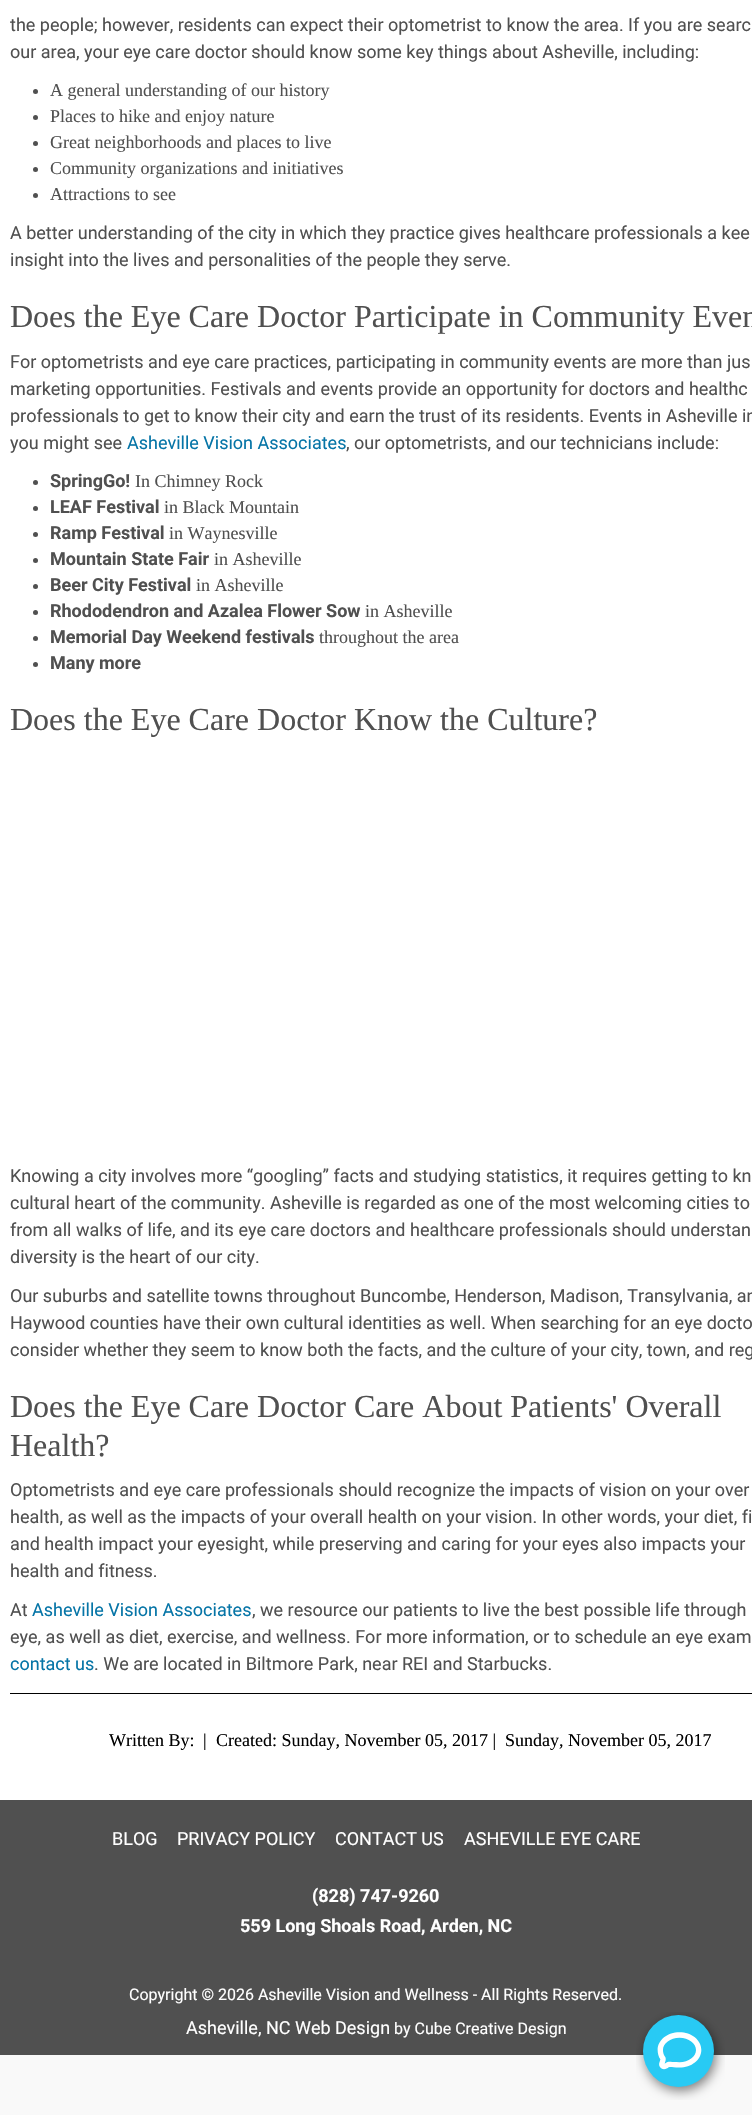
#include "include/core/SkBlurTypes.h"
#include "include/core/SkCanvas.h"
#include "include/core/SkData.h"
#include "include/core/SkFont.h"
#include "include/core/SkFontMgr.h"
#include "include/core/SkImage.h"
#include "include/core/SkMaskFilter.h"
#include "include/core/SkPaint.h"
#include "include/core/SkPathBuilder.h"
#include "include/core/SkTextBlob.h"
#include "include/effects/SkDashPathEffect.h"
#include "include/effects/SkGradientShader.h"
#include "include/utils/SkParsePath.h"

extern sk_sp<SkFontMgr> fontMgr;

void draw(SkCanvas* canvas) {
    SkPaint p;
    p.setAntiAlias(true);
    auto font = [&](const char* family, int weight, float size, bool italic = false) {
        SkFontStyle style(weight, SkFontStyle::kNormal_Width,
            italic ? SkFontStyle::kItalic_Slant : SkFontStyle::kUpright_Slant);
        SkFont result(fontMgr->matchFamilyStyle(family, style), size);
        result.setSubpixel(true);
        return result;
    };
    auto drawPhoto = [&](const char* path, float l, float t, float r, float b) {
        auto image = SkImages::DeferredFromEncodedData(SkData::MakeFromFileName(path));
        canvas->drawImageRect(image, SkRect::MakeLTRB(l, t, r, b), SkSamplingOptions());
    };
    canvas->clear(0xFFFFFFFF);
    auto font1 = font("Roboto", 400, 18);
    p.setColor(0xFF505050);
    canvas->drawString("the people; however, residents can expect their optometrist to know the area. If you are searc", 10, 31, font1, p);
    canvas->drawString("our area, your eye care doctor should know some key things about Asheville, including:", 10, 58, font1, p);
    canvas->drawCircle(35.5f, 91.5f, 2.5f, p);
    auto font2 = font("Liberation Serif", 400, 18);
    canvas->drawString("A general understanding of our history", 50, 96, font2, p);
    canvas->drawCircle(35.5f, 117.5f, 2.5f, p);
    canvas->drawString("Places to hike and enjoy nature", 50, 122, font2, p);
    canvas->drawCircle(35.5f, 143.5f, 2.5f, p);
    canvas->drawString("Great neighborhoods and places to live", 50, 148, font2, p);
    canvas->drawCircle(35.5f, 169.5f, 2.5f, p);
    canvas->drawString("Community organizations and initiatives", 50, 174, font2, p);
    canvas->drawCircle(35.5f, 195.5f, 2.5f, p);
    canvas->drawString("Attractions to see", 50, 200, font2, p);
    canvas->drawString("A better understanding of the city in which they practice gives healthcare professionals a kee", 10, 239, font1, p);
    canvas->drawString("insight into the lives and personalities of the people they serve.", 10, 266, font1, p);
    auto font3 = font("Liberation Serif", 400, 32);
    canvas->drawString("Does the Eye Care Doctor Participate in Community Even", 10, 327, font3, p);
    {
        const struct { const char* s; float x, y; } items[] = {
            {"For optometrists and eye care practices, participating in community events are more than jus", 10, 368},
            {"marketing opportunities. Festivals and events provide an opportunity for doctors and healthc", 10, 395},
            {"professionals to get to know their city and earn the trust of its residents. Events in Asheville in", 10, 422},
            {"you might see", 10, 449},
        };
        for (auto [s, x, y] : items) {
            canvas->drawString(s, x, y, font1, p);
        }
    }
    p.setColor(0xFF0675A7);
    canvas->drawString("Asheville Vision Associates", 127, 449, font1, p);
    p.setColor(0xFF505050);
    canvas->drawString(", our optometrists, and our technicians include:", 346, 449, font1, p);
    canvas->drawCircle(35.5f, 482.5f, 2.5f, p);
    auto font4 = font("Roboto", 700, 18);
    canvas->drawString("SpringGo!", 50, 487, font4, p);
    canvas->drawString("In Chimney Rock", 135, 487, font2, p);
    canvas->drawCircle(35.5f, 508.5f, 2.5f, p);
    canvas->drawString("LEAF Festival", 50, 513, font4, p);
    canvas->drawString("in Black Mountain", 164, 513, font2, p);
    canvas->drawCircle(35.5f, 534.5f, 2.5f, p);
    canvas->drawString("Ramp Festival", 50, 539, font4, p);
    canvas->drawString("in Waynesville", 169, 539, font2, p);
    canvas->drawCircle(35.5f, 560.5f, 2.5f, p);
    canvas->drawString("Mountain State Fair", 50, 565, font4, p);
    canvas->drawString("in Asheville", 214, 565, font2, p);
    canvas->drawCircle(35.5f, 586.5f, 2.5f, p);
    canvas->drawString("Beer City Festival", 50, 591, font4, p);
    canvas->drawString("in Asheville", 196, 591, font2, p);
    canvas->drawCircle(35.5f, 612.5f, 2.5f, p);
    canvas->drawString("Rhododendron and Azalea Flower Sow", 50, 617, font4, p);
    canvas->drawString("in Asheville", 365, 617, font2, p);
    canvas->drawCircle(35.5f, 638.5f, 2.5f, p);
    canvas->drawString("Memorial Day Weekend festivals", 50, 643, font4, p);
    canvas->drawString("throughout the area", 319, 643, font2, p);
    canvas->drawCircle(35.5f, 664.5f, 2.5f, p);
    canvas->drawString("Many more", 50, 669, font4, p);
    canvas->drawString("Does the Eye Care Doctor Know the Culture?", 10, 730, font3, p);
    {
        const struct { const char* s; float x, y; } items[] = {
            {"Knowing a city involves more “googling” facts and studying statistics, it requires getting to kn", 10, 1182},
            {"cultural heart of the community. Asheville is regarded as one of the most welcoming cities to", 10, 1209},
            {"from all walks of life, and its eye care doctors and healthcare professionals should understan", 10, 1236},
            {"diversity is the heart of our city.", 10, 1263},
            {"Our suburbs and satellite towns throughout Buncombe, Henderson, Madison, Transylvania, an", 10, 1302},
            {"Haywood counties have their own cultural identities as well. When searching for an eye docto", 10, 1329},
            {"consider whether they seem to know both the facts, and the culture of your city, town, and reg", 10, 1356},
        };
        for (auto [s, x, y] : items) {
            canvas->drawString(s, x, y, font1, p);
        }
    }
    canvas->drawString("Does the Eye Care Doctor Care About Patients' Overall", 10, 1417, font3, p);
    canvas->drawString("Health?", 10, 1456, font3, p);
    {
        const struct { const char* s; float x, y; } items[] = {
            {"Optometrists and eye care professionals should recognize the impacts of vision on your over", 10, 1496},
            {"health, as well as the impacts of your overall health on your vision. In other words, your diet, fi", 10, 1523},
            {"and health impact your eyesight, while preserving and caring for your eyes also impacts your", 10, 1550},
            {"health and fitness.", 10, 1577},
            {"At", 10, 1616},
        };
        for (auto [s, x, y] : items) {
            canvas->drawString(s, x, y, font1, p);
        }
    }
    p.setColor(0xFF0675A7);
    canvas->drawString("Asheville Vision Associates", 32, 1616, font1, p);
    p.setColor(0xFF505050);
    canvas->drawString(", we resource our patients to live the best possible life through", 252, 1616, font1, p);
    canvas->drawString("eye, as well as diet, exercise, and wellness. For more information, or to schedule an eye exam", 10, 1643, font1, p);
    p.setColor(0xFF0675A7);
    canvas->drawString("contact us", 10, 1670, font1, p);
    p.setColor(0xFF505050);
    canvas->drawString(". We are located in Biltmore Park, near REI and Starbucks.", 94, 1670, font1, p);
    p.setColor(0xFF000000);
    canvas->drawRect(SkRect::MakeLTRB(10, 1693, 752, 1694), p);
    {
        const struct { const char* s; float x, y; } items[] = {
            {"Written By:", 109, 1746},
            {"|", 203, 1746},
            {"Created: Sunday, November 05, 2017 |", 216, 1746},
            {"Sunday, November 05, 2017", 505, 1746},
        };
        for (auto [s, x, y] : items) {
            canvas->drawString(s, x, y, font2, p);
        }
    }
    p.setColor(0xFF505050);
    canvas->drawRect(SkRect::MakeLTRB(0, 1800, 752, 2055), p);
    p.setColor(0xFFFFFFFF);
    {
        const struct { const char* s; float x, y; } items[] = {
            {"BLOG", 112, 1845},
            {"PRIVACY POLICY", 177, 1845},
            {"CONTACT US", 335, 1845},
            {"ASHEVILLE EYE CARE", 464, 1845},
        };
        for (auto [s, x, y] : items) {
            canvas->drawString(s, x, y, font1, p);
        }
    }
    canvas->drawString("(828) 747-9260", 312, 1902, font4, p);
    canvas->drawString("559 Long Shoals Road, Arden, NC", 240, 1932, font4, p);
    auto font5 = font("Roboto", 400, 16);
    canvas->drawString("Copyright © 2026 Asheville Vision and Wellness - All Rights Reserved.", 129, 2000, font5, p);
    canvas->drawString("Asheville, NC Web Design", 186, 2034, font1, p);
    canvas->drawString("by Cube Creative Design", 394, 2034, font5, p);
    p.setColor(0xFFF9F9F9);
    canvas->drawRect(SkRect::MakeLTRB(0, 2055, 752, 2115), p);
    drawPhoto("media/1.png", 636, 2012, 725, 2100);
}
